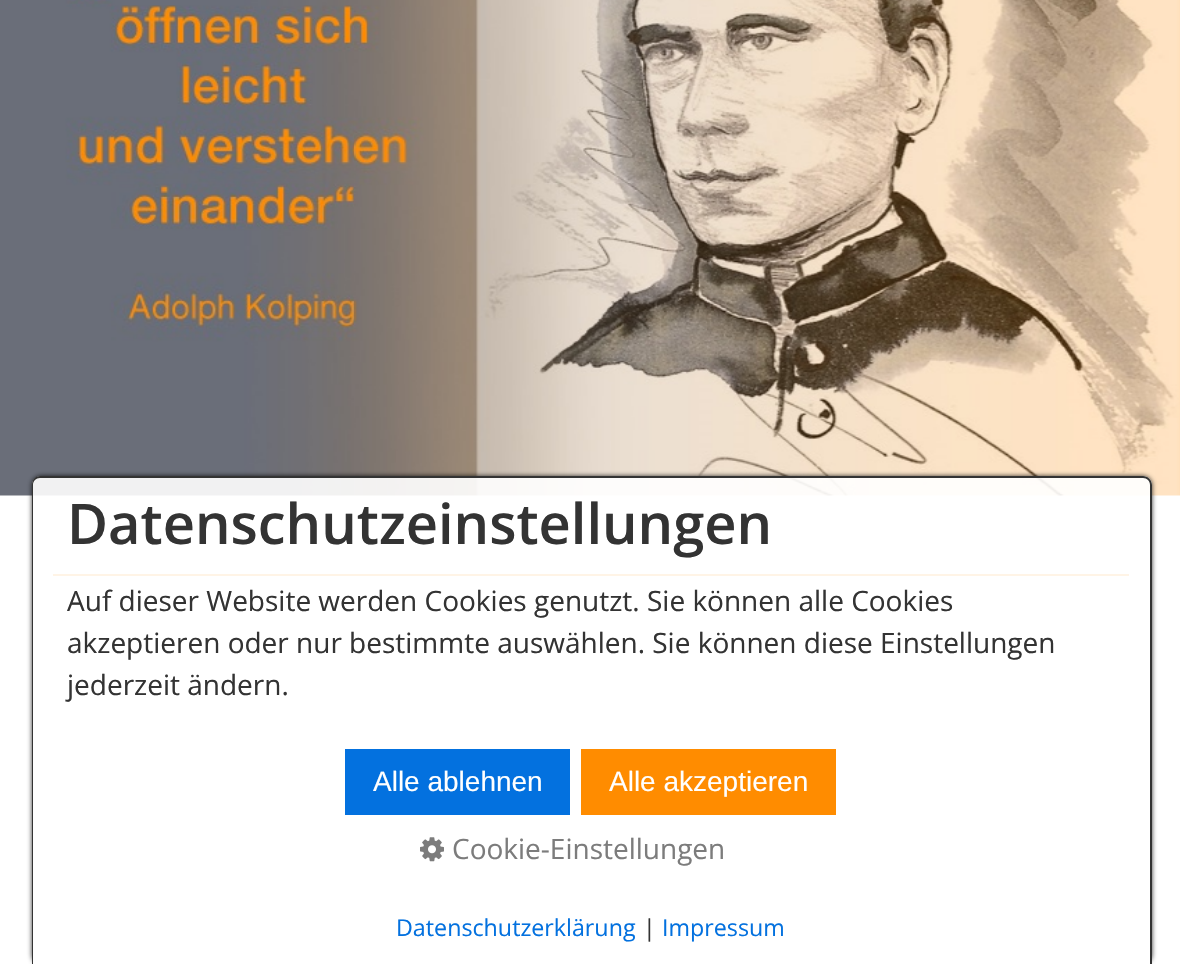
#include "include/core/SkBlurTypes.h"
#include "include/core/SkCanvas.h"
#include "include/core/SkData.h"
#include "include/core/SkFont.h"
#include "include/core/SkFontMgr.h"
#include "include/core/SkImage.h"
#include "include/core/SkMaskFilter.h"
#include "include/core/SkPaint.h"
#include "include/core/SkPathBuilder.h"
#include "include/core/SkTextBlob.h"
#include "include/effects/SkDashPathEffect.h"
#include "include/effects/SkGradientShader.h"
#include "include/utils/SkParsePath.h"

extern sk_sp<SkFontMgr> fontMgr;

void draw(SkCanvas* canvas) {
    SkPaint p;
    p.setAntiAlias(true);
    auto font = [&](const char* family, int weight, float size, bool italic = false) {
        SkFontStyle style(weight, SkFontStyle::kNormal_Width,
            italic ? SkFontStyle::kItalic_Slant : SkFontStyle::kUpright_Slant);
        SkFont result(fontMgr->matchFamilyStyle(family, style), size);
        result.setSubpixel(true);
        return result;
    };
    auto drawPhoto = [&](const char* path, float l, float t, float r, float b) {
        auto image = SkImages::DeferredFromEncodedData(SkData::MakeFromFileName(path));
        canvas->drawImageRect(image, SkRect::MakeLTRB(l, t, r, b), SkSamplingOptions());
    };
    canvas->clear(0xFFFFFFFF);
    drawPhoto("media/1.png", 0, 0, 1180, 496);
    p.setColor(0xFFFF8C00);
    canvas->drawRect(SkRect::MakeLTRB(53, 574, 1129, 576), p);
    canvas->save();
    canvas->clipPath(SkPathBuilder(SkPathFillType::kEvenOdd).moveTo(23, 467).lineTo(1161, 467).lineTo(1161, 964).lineTo(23, 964).close().moveTo(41, 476).lineTo(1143, 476).cubicTo(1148, 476, 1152, 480, 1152, 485).lineTo(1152, 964).lineTo(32, 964).lineTo(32, 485).cubicTo(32, 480, 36, 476, 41, 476).close().detach(), true);
    p.setColor(0xCC000000);
    p.setMaskFilter(SkMaskFilter::MakeBlur(kNormal_SkBlurStyle, 2.5f));
    canvas->drawRoundRect(SkRect::MakeLTRB(32, 476, 1152, 964), 9, 9, p);
    p.setMaskFilter(nullptr);
    canvas->restore();
    p.setColor(0xE6FFFFFF);
    canvas->drawPath(SkPathBuilder().moveTo(41, 476).lineTo(1143, 476).cubicTo(1148, 476, 1152, 480, 1152, 485).lineTo(1152, 964).lineTo(32, 964).lineTo(32, 485).cubicTo(32, 480, 36, 476, 41, 476).close().detach(), p);
    p.setColor(0xFF333333);
    canvas->drawPath(SkPathBuilder(SkPathFillType::kEvenOdd).moveTo(40, 476).lineTo(1143, 476).cubicTo(1148, 476, 1152, 480, 1152, 485).lineTo(1152, 964).lineTo(32, 964).lineTo(32, 485).cubicTo(32, 480, 35, 476, 40, 476).close().moveTo(40, 478).lineTo(1143, 478).cubicTo(1147, 478, 1150, 481, 1150, 485).lineTo(1150, 964).lineTo(33, 964).lineTo(33, 485).cubicTo(33, 481, 36, 478, 40, 478).close().detach(), p);
    auto font1 = font("Open Sans", 600, 56);
    canvas->drawString("Datenschutzeinstellungen", 67, 544, font1, p);
    auto font2 = font("Open Sans", 400, 28);
    {
        const struct { const char* s; float x, y; } items[] = {
            {"Auf dieser Website werden Cookies genutzt. Sie können alle Cookies", 67, 611},
            {"akzeptieren oder nur bestimmte auswählen. Sie können diese Einstellungen", 67, 653},
            {"jederzeit ändern.", 67, 695},
        };
        for (auto [s, x, y] : items) {
            canvas->drawString(s, x, y, font2, p);
        }
    }
    p.setColor(0xFF0371DF);
    canvas->drawRect(SkRect::MakeLTRB(345, 749, 570, 815), p);
    auto font3 = font("Liberation Sans", 400, 28);
    p.setColor(0xFFFFFFFF);
    canvas->drawString("Alle ablehnen", 373, 791, font3, p);
    p.setColor(0xFFFF8C00);
    canvas->drawRect(SkRect::MakeLTRB(581, 749, 836, 815), p);
    p.setColor(0xFFFFFFFF);
    canvas->drawString("Alle akzeptieren", 609, 791, font3, p);
    drawPhoto("media/2.png", 420, 837, 444, 862);
    p.setColor(0xFF7C7C7C);
    canvas->drawString("Cookie-Einstellungen", 452, 859, font2, p);
    auto font4 = font("Open Sans", 400, 23.25f);
    p.setColor(0xFF0371DF);
    canvas->drawString("Datenschutzerklärung", 396, 936, font4, p);
    p.setColor(0xFF333333);
    canvas->drawString("|", 643, 936, font4, p);
    p.setColor(0xFF0371DF);
    canvas->drawString("Impressum", 662, 936, font4, p);
}
